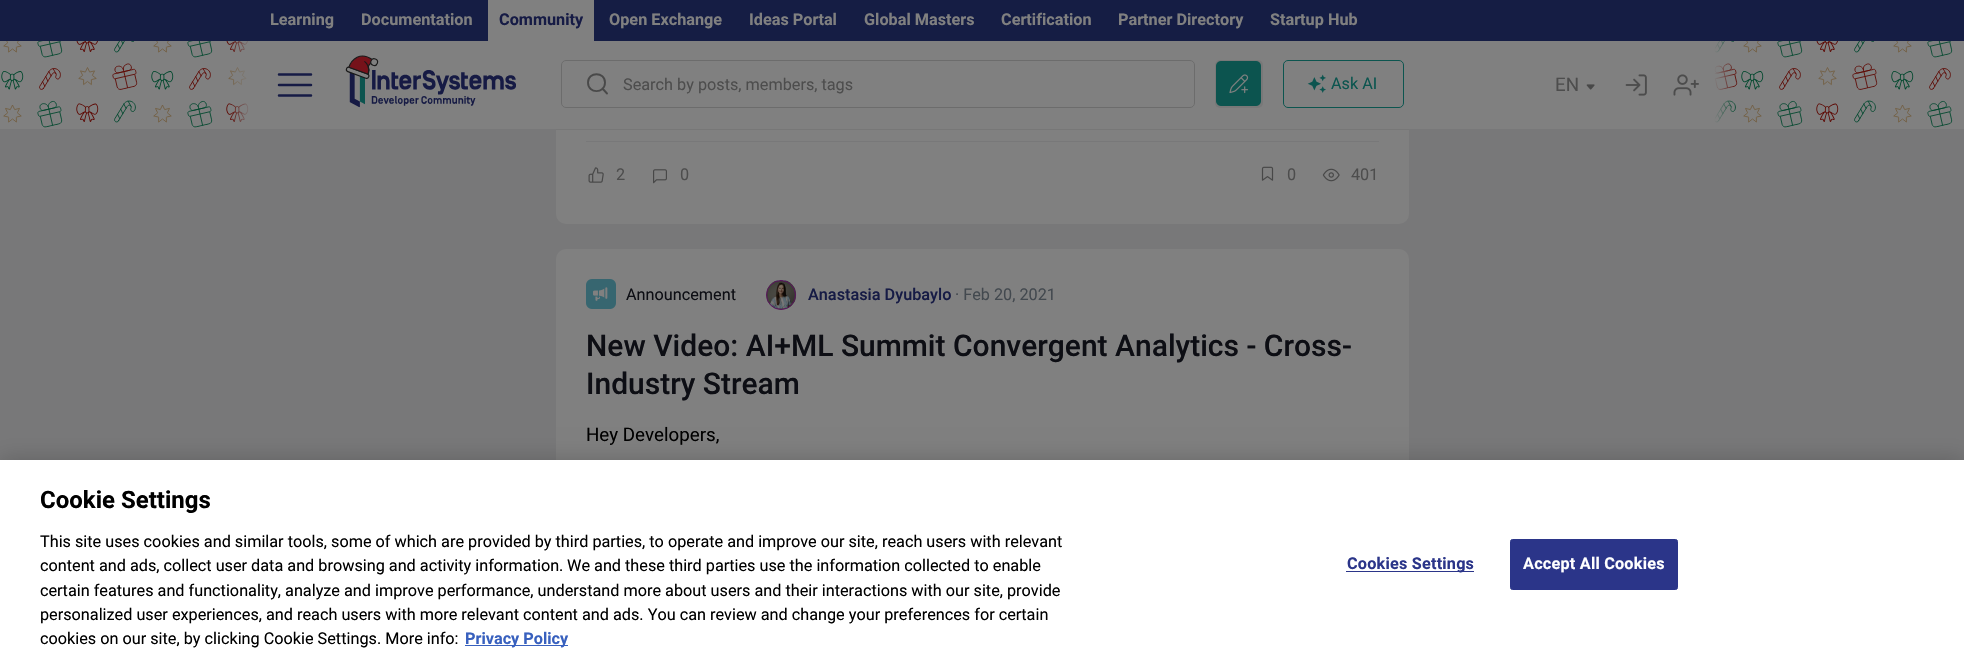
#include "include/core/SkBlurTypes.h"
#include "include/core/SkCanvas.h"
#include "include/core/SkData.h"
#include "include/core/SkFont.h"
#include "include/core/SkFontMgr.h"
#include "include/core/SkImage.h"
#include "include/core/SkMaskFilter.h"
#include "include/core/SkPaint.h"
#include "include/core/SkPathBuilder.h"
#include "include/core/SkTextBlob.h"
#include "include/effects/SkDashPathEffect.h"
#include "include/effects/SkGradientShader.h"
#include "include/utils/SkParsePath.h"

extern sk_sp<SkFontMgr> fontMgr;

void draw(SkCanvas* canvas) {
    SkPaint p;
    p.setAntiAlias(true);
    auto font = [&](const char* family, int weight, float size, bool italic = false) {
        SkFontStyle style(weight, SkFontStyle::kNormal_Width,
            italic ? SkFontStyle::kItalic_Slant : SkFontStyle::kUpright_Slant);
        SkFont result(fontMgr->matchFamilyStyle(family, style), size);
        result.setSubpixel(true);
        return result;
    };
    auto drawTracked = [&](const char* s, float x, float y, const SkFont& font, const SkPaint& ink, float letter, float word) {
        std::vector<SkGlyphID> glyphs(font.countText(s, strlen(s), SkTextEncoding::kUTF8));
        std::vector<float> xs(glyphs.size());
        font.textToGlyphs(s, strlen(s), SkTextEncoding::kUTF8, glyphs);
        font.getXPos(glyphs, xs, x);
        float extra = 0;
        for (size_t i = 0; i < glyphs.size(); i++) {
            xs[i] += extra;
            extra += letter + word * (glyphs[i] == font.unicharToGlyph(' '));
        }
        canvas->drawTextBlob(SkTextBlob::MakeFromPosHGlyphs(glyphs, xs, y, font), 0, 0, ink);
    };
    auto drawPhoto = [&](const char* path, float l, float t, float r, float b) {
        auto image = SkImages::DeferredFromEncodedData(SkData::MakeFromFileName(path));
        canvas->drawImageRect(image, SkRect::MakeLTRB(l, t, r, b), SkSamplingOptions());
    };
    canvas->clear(0xFF787879);
    p.setColor(0xFF808080);
    canvas->drawRoundRect(SkRect::MakeLTRB(556, -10, 1409, 224), 10, 10, p);
    canvas->drawRect(SkRect::MakeLTRB(0, 41, 1964, 129), p);
    drawPhoto("media/1.png", 1, 41, 1953, 128);
    p.setColor(0xFF777777);
    canvas->drawRect(SkRect::MakeLTRB(556, 129, 1409, 130), p);
    p.setColor(0xFF151D44);
    canvas->drawRect(SkRect::MakeLTRB(0, 0, 1964, 41), p);
    auto font1 = font("Roboto", 700, 16.25f);
    p.setColor(0xFF808080);
    canvas->drawString("Learning", 270, 25, font1, p);
    canvas->drawString("Documentation", 361, 25, font1, p);
    canvas->drawRect(SkRect::MakeLTRB(488, 0, 594, 41), p);
    p.setColor(0xFF161B45);
    canvas->drawString("Community", 499, 25, font1, p);
    p.setColor(0xFF808080);
    {
        const struct { const char* s; float x, y; } items[] = {
            {"Open Exchange", 609, 25},
            {"Ideas Portal", 749, 25},
            {"Global Masters", 864, 25},
            {"Certification", 1001, 25},
            {"Partner Directory", 1118, 25},
            {"Startup Hub", 1270, 25},
        };
        for (auto [s, x, y] : items) {
            canvas->drawString(s, x, y, font1, p);
        }
    }
    canvas->drawRect(SkRect::MakeLTRB(262, 41, 1714, 128), p);
    {
        const SkColor colors[] = {0xFF808080, 0x00808080};
        const float stops[] = {0, 1};
        const SkPoint ends[] = {{251, 85}, {229, 85}};
        p.setShader(SkGradientShader::MakeLinear(ends, colors, stops, 2, SkTileMode::kClamp));
        p.setAlpha(255);
    }
    canvas->drawRect(SkRect::MakeLTRB(230, 41, 249, 122), p);
    p.setStyle(SkPaint::kStroke_Style);
    p.setStrokeWidth(2.5f);
    p.setStrokeCap(SkPaint::kRound_Cap);
    p.setStrokeJoin(SkPaint::kRound_Join);
    p.setShader(nullptr);
    p.setColor(0xFF161B45);
    canvas->drawPath(SkPathBuilder().moveTo(279, 85).lineTo(311, 85).moveTo(279, 74.5f).lineTo(311, 74.5f).moveTo(279, 95.5f).lineTo(311, 95.5f).detach(), p);
    drawPhoto("media/2.png", 345, 55, 516, 108);
    p.setStrokeWidth(1.9f);
    p.setColor(0xFF494949);
    canvas->drawPath(SkPathBuilder().moveTo(607, 93.5f).lineTo(602.5f, 88.5f).moveTo(605, 82.5f).cubicTo(605, 94, 588, 94, 588, 82.5f).cubicTo(588, 71.5f, 605, 71.5f, 605, 82.5f).close().detach(), p);
    p.setStrokeWidth(1);
    p.setStrokeCap(SkPaint::kButt_Cap);
    p.setStrokeJoin(SkPaint::kMiter_Join);
    p.setColor(0xFF6C6C6C);
    canvas->drawRoundRect(SkRect::MakeLTRB(561.5f, 60.5f, 1194.5f, 107.5f), 4.5f, 4.5f, p);
    auto font2 = font("Roboto", 400, 16.25f);
    p.setStyle(SkPaint::kFill_Style);
    p.setColor(0xFF4D4D4D);
    canvas->drawString("Search by posts, members, tags", 623, 90, font2, p);
    p.setColor(0xFF787878);
    canvas->drawRoundRect(SkRect::MakeLTRB(1215, 60, 1263, 108), 5, 5, p);
    drawPhoto("media/3.png", 1216, 61, 1261, 106);
    drawPhoto("media/4.png", 1307, 74, 1326, 93);
    p.setStyle(SkPaint::kStroke_Style);
    p.setColor(0xFF0C554F);
    canvas->drawRoundRect(SkRect::MakeLTRB(1283.5f, 60.5f, 1403.5f, 107.5f), 4.5f, 4.5f, p);
    p.setStyle(SkPaint::kFill_Style);
    canvas->drawString("Ask AI", 1331, 89, font2, p);
    auto font3 = font("Roboto", 400, 18.75f);
    p.setColor(0xFF4D4D4D);
    canvas->drawString("EN", 1555, 91, font3, p);
    drawPhoto("media/5.png", 1586, 84, 1595, 90);
    drawPhoto("media/6.png", 1625, 74, 1647, 96);
    drawPhoto("media/7.png", 1673, 74, 1699, 96);
    {
        const SkColor colors[] = {0xFF808080, 0x00808080};
        const float stops[] = {0, 1};
        const SkPoint ends[] = {{1714, 85}, {1736, 85}};
        p.setShader(SkGradientShader::MakeLinear(ends, colors, stops, 2, SkTileMode::kClamp));
        p.setAlpha(255);
    }
    canvas->drawRect(SkRect::MakeLTRB(1714, 41, 1735, 123), p);
    p.setShader(nullptr);
    p.setColor(0xFF787879);
    canvas->drawRect(SkRect::MakeLTRB(586, 141, 1379, 142), p);
    drawPhoto("media/8.png", 588, 167, 604, 183);
    p.setColor(0xFF4D4D4D);
    canvas->drawString("2", 616, 180, font2, p);
    drawPhoto("media/9.png", 653, 169, 667, 184);
    canvas->drawString("0", 680, 180, font2, p);
    drawPhoto("media/10.png", 1261, 166, 1274, 181);
    canvas->drawString("0", 1287, 180, font2, p);
    drawPhoto("media/11.png", 1322, 168, 1340, 182);
    canvas->drawString("401", 1351, 180, font2, p);
    p.setColor(0xFF808080);
    canvas->drawRoundRect(SkRect::MakeLTRB(556, 249, 1409, 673), 10, 10, p);
    drawPhoto("media/12.png", 586, 279, 616, 309);
    p.setColor(0xFF0D0E14);
    canvas->drawString("Announcement", 626, 300, font2, p);
    drawPhoto("media/13.png", 766, 280, 797, 310);
    p.setStyle(SkPaint::kStroke_Style);
    p.setColor(0xFF5B115F);
    canvas->drawCircle(781, 295, 14.5f, p);
    auto font4 = font("Roboto", 500, 16.25f);
    p.setStyle(SkPaint::kFill_Style);
    p.setColor(0xFF161B45);
    canvas->drawString("Anastasia Dyubaylo", 808, 300, font4, p);
    p.setColor(0xFF43494F);
    canvas->drawString("· Feb 20, 2021", 955, 300, font2, p);
    auto font5 = font("Roboto", 500, 30);
    p.setColor(0xFF0D0E14);
    canvas->drawString("New Video: AI+ML Summit Convergent Analytics - Cross-", 586, 356, font5, p);
    canvas->drawString("Industry Stream", 586, 394, font5, p);
    p.setColor(0xFF000000);
    canvas->drawString("Hey Developers,", 586, 441, font3, p);
    p.setColor(0x33000000);
    p.setMaskFilter(SkMaskFilter::MakeBlur(kNormal_SkBlurStyle, 11));
    canvas->drawRect(SkRect::MakeLTRB(0, 460, 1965, 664), p);
    p.setMaskFilter(nullptr);
    p.setColor(0xFFFFFFFF);
    canvas->drawRect(SkRect::MakeLTRB(0, 460, 1964, 663), p);
    auto font6 = font("Roboto", 700, 24);
    p.setColor(0xFF000000);
    canvas->drawString("Cookie Settings", 40, 508, font6, p);
    {
        const struct { const char* s; float x, y; } items[] = {
            {"This site uses cookies and similar tools, some of which are provided by third parties, to operate and improve our site, reach users with relevant", 40, 547},
            {"content and ads, collect user data and browsing and activity information.", 40, 571},
            {"We and these third parties use the information collected to enable", 567, 571},
            {"certain features and functionality, analyze and improve performance, understand more about users and their interactions with our site, provide", 40, 596},
            {"personalized user experiences, and reach users with more relevant content and ads. You can review and change your preferences for certain", 40, 620},
            {"cookies on our site, by clicking Cookie Settings. More info:", 40, 644},
        };
        for (auto [s, x, y] : items) {
            canvas->drawString(s, x, y, font2, p);
        }
    }
    p.setColor(0xFF3860BE);
    canvas->drawRect(SkRect::MakeLTRB(465, 645, 568, 646), p);
    canvas->drawString("Privacy Policy", 465, 644, font1, p);
    p.setColor(0xFF2B3589);
    canvas->drawRect(SkRect::MakeLTRB(1346, 571, 1474, 572), p);
    drawTracked("Cookies Settings", 1347, 569, font1, p, 0.2f, 0);
    canvas->drawRoundRect(SkRect::MakeLTRB(1510.5f, 539.5f, 1677.5f, 589.5f), 2, 2, p);
    p.setStyle(SkPaint::kStroke_Style);
    canvas->drawRoundRect(SkRect::MakeLTRB(1510.5f, 539.5f, 1677.5f, 589.5f), 2, 2, p);
    p.setStyle(SkPaint::kFill_Style);
    p.setColor(0xFFFFFFFF);
    drawTracked("Accept All Cookies", 1523, 569, font1, p, 0.2f, 0);
}
